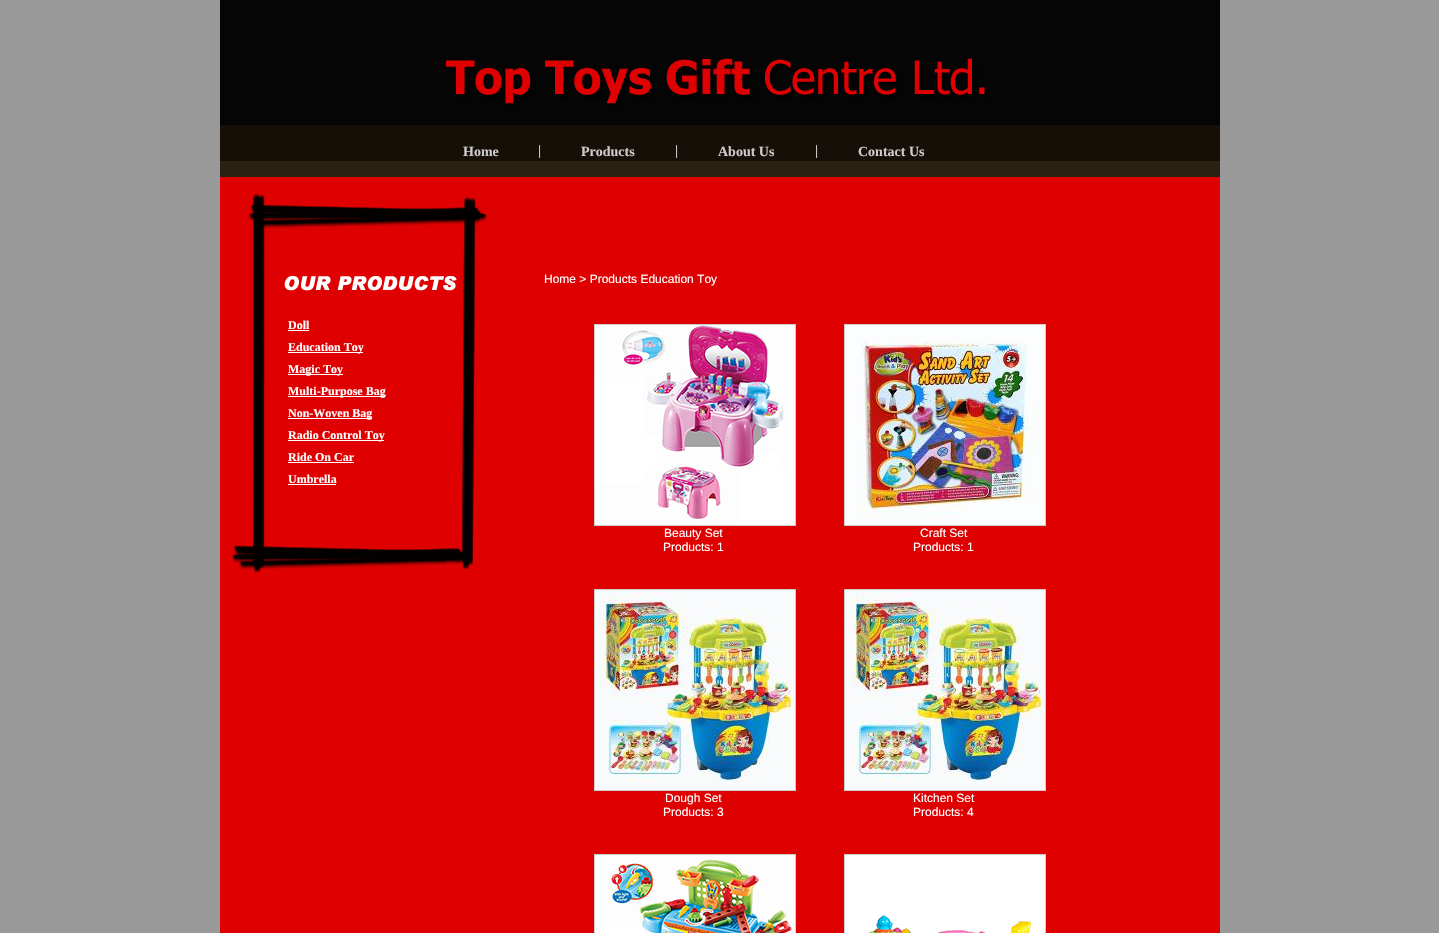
#include "include/core/SkBlurTypes.h"
#include "include/core/SkCanvas.h"
#include "include/core/SkData.h"
#include "include/core/SkFont.h"
#include "include/core/SkFontMgr.h"
#include "include/core/SkImage.h"
#include "include/core/SkMaskFilter.h"
#include "include/core/SkPaint.h"
#include "include/core/SkPathBuilder.h"
#include "include/core/SkTextBlob.h"
#include "include/effects/SkDashPathEffect.h"
#include "include/effects/SkGradientShader.h"
#include "include/utils/SkParsePath.h"

extern sk_sp<SkFontMgr> fontMgr;

void draw(SkCanvas* canvas) {
    SkPaint p;
    p.setAntiAlias(true);
    auto font = [&](const char* family, int weight, float size, bool italic = false) {
        SkFontStyle style(weight, SkFontStyle::kNormal_Width,
            italic ? SkFontStyle::kItalic_Slant : SkFontStyle::kUpright_Slant);
        SkFont result(fontMgr->matchFamilyStyle(family, style), size);
        result.setSubpixel(true);
        return result;
    };
    auto drawPhoto = [&](const char* path, float l, float t, float r, float b) {
        auto image = SkImages::DeferredFromEncodedData(SkData::MakeFromFileName(path));
        canvas->drawImageRect(image, SkRect::MakeLTRB(l, t, r, b), SkSamplingOptions());
    };
    canvas->clear(0xFF999999);
    drawPhoto("media/1.png", 220, 0, 1220, 193);
    auto font1 = font("Liberation Serif", 700, 14);
    p.setColor(0xFFCCCCCC);
    {
        const struct { const char* s; float x, y; } items[] = {
            {"Home", 463, 156},
            {"|", 538, 155},
            {"Products", 581, 156},
            {"|", 675, 155},
            {"About Us", 718, 156},
            {"|", 815, 155},
            {"Contact Us", 858, 156},
        };
        for (auto [s, x, y] : items) {
            canvas->drawString(s, x, y, font1, p);
        }
    }
    p.setColor(0xFFDF0001);
    canvas->drawRect(SkRect::MakeLTRB(220, 193, 1220, 933), p);
    drawPhoto("media/2.png", 231, 194, 483, 573);
    auto font2 = font("Liberation Serif", 700, 12);
    p.setColor(0xFFFFFFFF);
    canvas->drawString("Doll", 288, 329, font2, p);
    canvas->drawRect(SkRect::MakeLTRB(288, 330, 309, 331), p);
    canvas->drawRect(SkRect::MakeLTRB(288, 352, 363, 353), p);
    canvas->drawString("Education Toy", 288, 351, font2, p);
    canvas->drawRect(SkRect::MakeLTRB(288, 374, 343, 375), p);
    canvas->drawString("Magic Toy", 288, 373, font2, p);
    canvas->drawRect(SkRect::MakeLTRB(288, 396, 385, 397), p);
    canvas->drawString("Multi-Purpose Bag", 288, 395, font2, p);
    canvas->drawRect(SkRect::MakeLTRB(288, 418, 372, 419), p);
    canvas->drawString("Non-Woven Bag", 288, 417, font2, p);
    canvas->drawRect(SkRect::MakeLTRB(288, 440, 384, 441), p);
    canvas->drawString("Radio Control Toy", 288, 439, font2, p);
    canvas->drawString("Ride On Car", 288, 461, font2, p);
    canvas->drawRect(SkRect::MakeLTRB(288, 462, 354, 463), p);
    canvas->drawString("Umbrella", 288, 483, font2, p);
    canvas->drawRect(SkRect::MakeLTRB(288, 484, 336, 485), p);
    drawPhoto("media/3.png", 483, 213, 488, 222);
    auto font3 = font("Liberation Sans", 400, 12);
    canvas->drawString("Home > Products Education Toy", 544, 283, font3, p);
    p.setStyle(SkPaint::kStroke_Style);
    p.setStrokeWidth(1);
    p.setColor(0xFFCCCCCC);
    canvas->drawRect(SkRect::MakeLTRB(594.5f, 324.5f, 795.5f, 525.5f), p);
    drawPhoto("media/4.png", 595, 325, 795, 525);
    p.setStyle(SkPaint::kFill_Style);
    p.setColor(0xFFFFFFFF);
    canvas->drawString("Beauty Set", 664, 537, font3, p);
    canvas->drawString("Products: 1", 663, 551, font3, p);
    p.setStyle(SkPaint::kStroke_Style);
    p.setColor(0xFFCCCCCC);
    canvas->drawRect(SkRect::MakeLTRB(844.5f, 324.5f, 1045.5f, 525.5f), p);
    drawPhoto("media/5.png", 845, 325, 1045, 525);
    p.setStyle(SkPaint::kFill_Style);
    p.setColor(0xFFFFFFFF);
    canvas->drawString("Craft Set", 920, 537, font3, p);
    canvas->drawString("Products: 1", 913, 551, font3, p);
    p.setStyle(SkPaint::kStroke_Style);
    p.setColor(0xFFCCCCCC);
    canvas->drawRect(SkRect::MakeLTRB(594.5f, 589.5f, 795.5f, 790.5f), p);
    drawPhoto("media/6.png", 595, 590, 795, 790);
    p.setStyle(SkPaint::kFill_Style);
    p.setColor(0xFFFFFFFF);
    canvas->drawString("Dough Set", 665, 802, font3, p);
    canvas->drawString("Products: 3", 663, 816, font3, p);
    p.setStyle(SkPaint::kStroke_Style);
    p.setColor(0xFFCCCCCC);
    canvas->drawRect(SkRect::MakeLTRB(844.5f, 589.5f, 1045.5f, 790.5f), p);
    drawPhoto("media/6.png", 845, 590, 1045, 790);
    p.setStyle(SkPaint::kFill_Style);
    p.setColor(0xFFFFFFFF);
    canvas->drawString("Kitchen Set", 913, 802, font3, p);
    canvas->drawString("Products: 4", 913, 816, font3, p);
    p.setStyle(SkPaint::kStroke_Style);
    p.setColor(0xFFCCCCCC);
    canvas->drawRect(SkRect::MakeLTRB(594.5f, 854.5f, 795.5f, 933.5f), p);
    drawPhoto("media/7.png", 595, 855, 795, 933);
    canvas->drawRect(SkRect::MakeLTRB(844.5f, 854.5f, 1045.5f, 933.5f), p);
    drawPhoto("media/8.png", 845, 855, 1045, 933);
}
